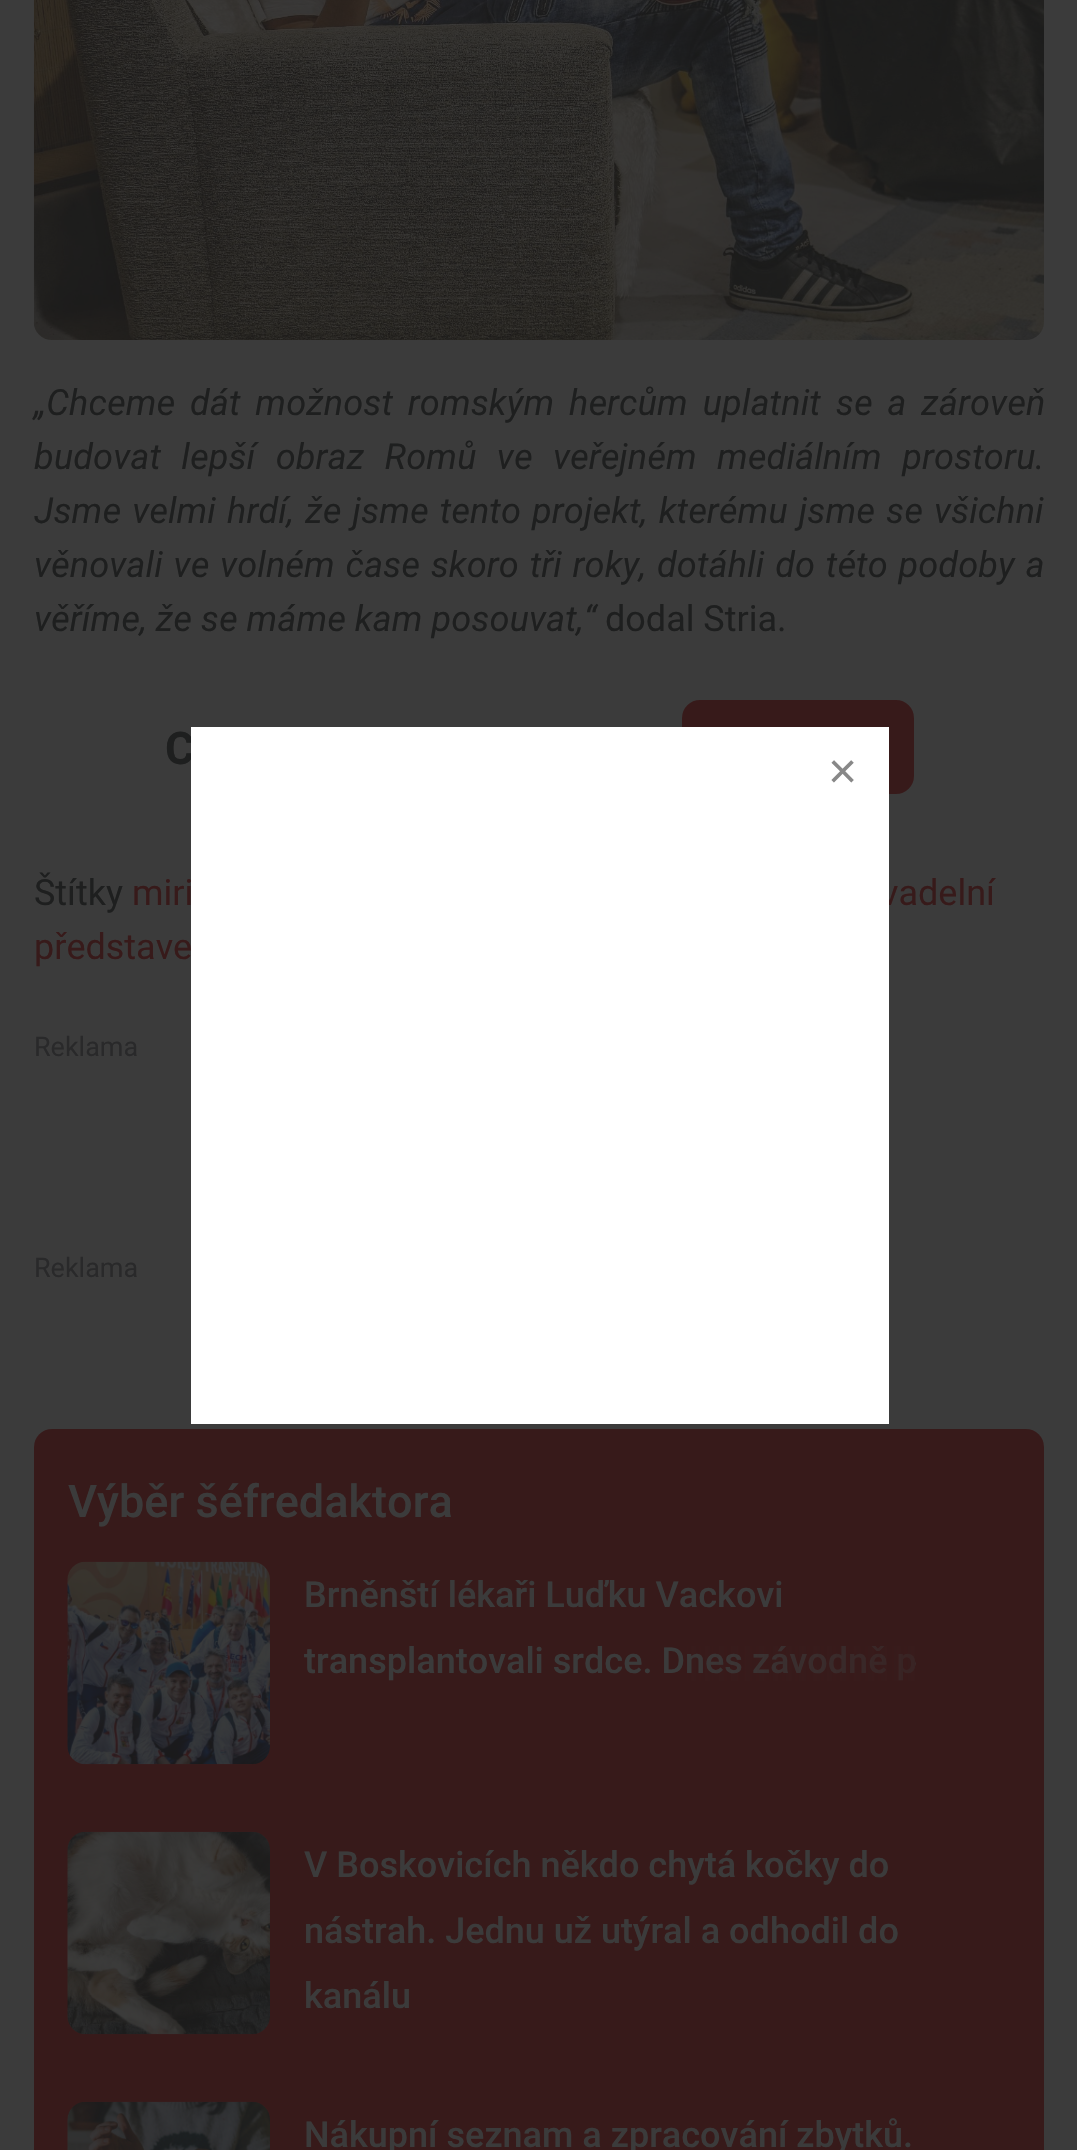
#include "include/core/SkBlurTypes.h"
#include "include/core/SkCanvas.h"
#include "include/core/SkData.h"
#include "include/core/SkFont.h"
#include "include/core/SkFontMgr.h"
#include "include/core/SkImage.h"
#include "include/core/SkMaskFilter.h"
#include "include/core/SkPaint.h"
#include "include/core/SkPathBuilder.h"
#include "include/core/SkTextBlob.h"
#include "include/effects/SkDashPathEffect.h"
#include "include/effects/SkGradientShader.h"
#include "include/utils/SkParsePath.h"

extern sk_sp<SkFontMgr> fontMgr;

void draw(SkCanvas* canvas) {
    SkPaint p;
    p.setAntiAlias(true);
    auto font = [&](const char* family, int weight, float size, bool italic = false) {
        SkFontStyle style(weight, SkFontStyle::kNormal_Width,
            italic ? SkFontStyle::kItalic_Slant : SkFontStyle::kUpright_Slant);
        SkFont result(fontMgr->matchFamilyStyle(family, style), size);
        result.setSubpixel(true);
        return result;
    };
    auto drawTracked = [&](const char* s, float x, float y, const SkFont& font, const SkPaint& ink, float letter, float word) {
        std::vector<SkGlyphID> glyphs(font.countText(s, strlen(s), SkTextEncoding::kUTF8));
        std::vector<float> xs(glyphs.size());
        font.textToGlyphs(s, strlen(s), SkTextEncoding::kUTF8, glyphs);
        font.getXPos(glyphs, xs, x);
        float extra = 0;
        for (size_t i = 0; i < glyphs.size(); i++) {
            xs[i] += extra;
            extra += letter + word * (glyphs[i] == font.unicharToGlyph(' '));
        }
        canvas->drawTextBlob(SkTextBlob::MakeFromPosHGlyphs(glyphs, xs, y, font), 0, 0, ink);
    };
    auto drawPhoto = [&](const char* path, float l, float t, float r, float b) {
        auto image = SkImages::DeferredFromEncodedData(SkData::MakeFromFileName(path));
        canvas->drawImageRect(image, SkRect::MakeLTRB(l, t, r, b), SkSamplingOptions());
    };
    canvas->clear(0xFF3B3B3B);
    drawPhoto("media/1.png", 33, 0, 1044, 340);
    auto font1 = font("Roboto", 400, 36, true);
    p.setColor(0xFF1E1F1F);
    drawTracked("„Chceme dát možnost romským hercům uplatnit se a zároveň", 34, 415, font1, p, 0, 6);
    drawTracked("budovat lepší obraz Romů ve veřejném mediálním prostoru.", 34, 469, font1, p, 0, 11.5f);
    drawTracked("Jsme velmi hrdí, že jsme tento projekt, kterému jsme se všichni", 34, 523, font1, p, 0, 2.25f);
    drawTracked("věnovali ve volném čase skoro tři roky, dotáhli do této podoby a", 34, 577, font1, p, 0, 1.9f);
    canvas->drawString("věříme, že se máme kam posouvat,“", 34, 631, font1, p);
    auto font2 = font("Roboto", 400, 36);
    canvas->drawString("dodal Stria.", 605, 631, font2, p);
    auto font3 = font("Roboto", 700, 45);
    canvas->drawString("C", 165, 764, font3, p);
    p.setColor(0xFF371A1A);
    canvas->drawRoundRect(SkRect::MakeLTRB(683, 701, 913, 793), 17, 17, p);
    p.setStyle(SkPaint::kStroke_Style);
    p.setStrokeWidth(2);
    canvas->drawRoundRect(SkRect::MakeLTRB(683, 701, 913, 793), 17, 17, p);
    p.setStyle(SkPaint::kFill_Style);
    p.setColor(0xFF1E1F1F);
    canvas->drawString("Štítky", 34, 905, font2, p);
    p.setColor(0xFF371A1A);
    {
        const struct { const char* s; float x, y; } items[] = {
            {"miri", 132, 905},
            {"vadelní", 881, 905},
            {"představe", 34, 959},
        };
        for (auto [s, x, y] : items) {
            canvas->drawString(s, x, y, font2, p);
        }
    }
    auto font4 = font("Roboto", 400, 27);
    p.setColor(0xFF29292A);
    canvas->drawString("Reklama", 34, 1056, font4, p);
    canvas->drawString("Reklama", 34, 1277, font4, p);
    p.setColor(0xFF371A1A);
    canvas->drawRoundRect(SkRect::MakeLTRB(34, 1429, 1044, 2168), 18, 18, p);
    auto font5 = font("Roboto", 500, 45);
    p.setColor(0xFF3B3B3B);
    canvas->drawString("Výběr šéfredaktora", 68, 1517, font5, p);
    drawPhoto("media/2.png", 67, 1561, 270, 1765);
    auto font6 = font("Roboto", 500, 36);
    canvas->drawString("Brněnští lékaři Luďku Vackovi", 304, 1607, font6, p);
    canvas->save();
    canvas->clipRect(SkRect::MakeLTRB(304, 1562, 1010, 1764));
    canvas->drawString("transplantovali srdce. Dnes závodně p", 304, 1673, font6, p);
    canvas->restore();
    {
        const SkColor colors[] = {0x00371A1A, 0xFF371A1A};
        const float stops[] = {0, 1};
        const SkPoint ends[] = {{657, 1667}, {1010, 1667}};
        p.setShader(SkGradientShader::MakeLinear(ends, colors, stops, 2, SkTileMode::kClamp));
        p.setAlpha(255);
    }
    canvas->drawRect(SkRect::MakeLTRB(687, 1646, 915, 1681), p);
    drawPhoto("media/3.png", 67, 1831, 270, 2035);
    p.setShader(nullptr);
    p.setColor(0xFF3B3B3B);
    {
        const struct { const char* s; float x, y; } items[] = {
            {"V Boskovicích někdo chytá kočky do", 304, 1877},
            {"nástrah. Jednu už utýral a odhodil do", 304, 1943},
            {"kanálu", 304, 2008},
        };
        for (auto [s, x, y] : items) {
            canvas->drawString(s, x, y, font6, p);
        }
    }
    drawPhoto("media/4.png", 67, 2101, 270, 2150);
    canvas->drawString("Nákupní seznam a zpracování zbytků.", 304, 2147, font6, p);
    p.setColor(0xFFFFFFFF);
    canvas->drawRect(SkRect::MakeLTRB(191, 727, 889, 1424), p);
    auto font7 = font("Liberation Sans", 400, 50);
    p.setColor(0xFF888888);
    canvas->drawString("×", 828, 788, font7, p);
}
